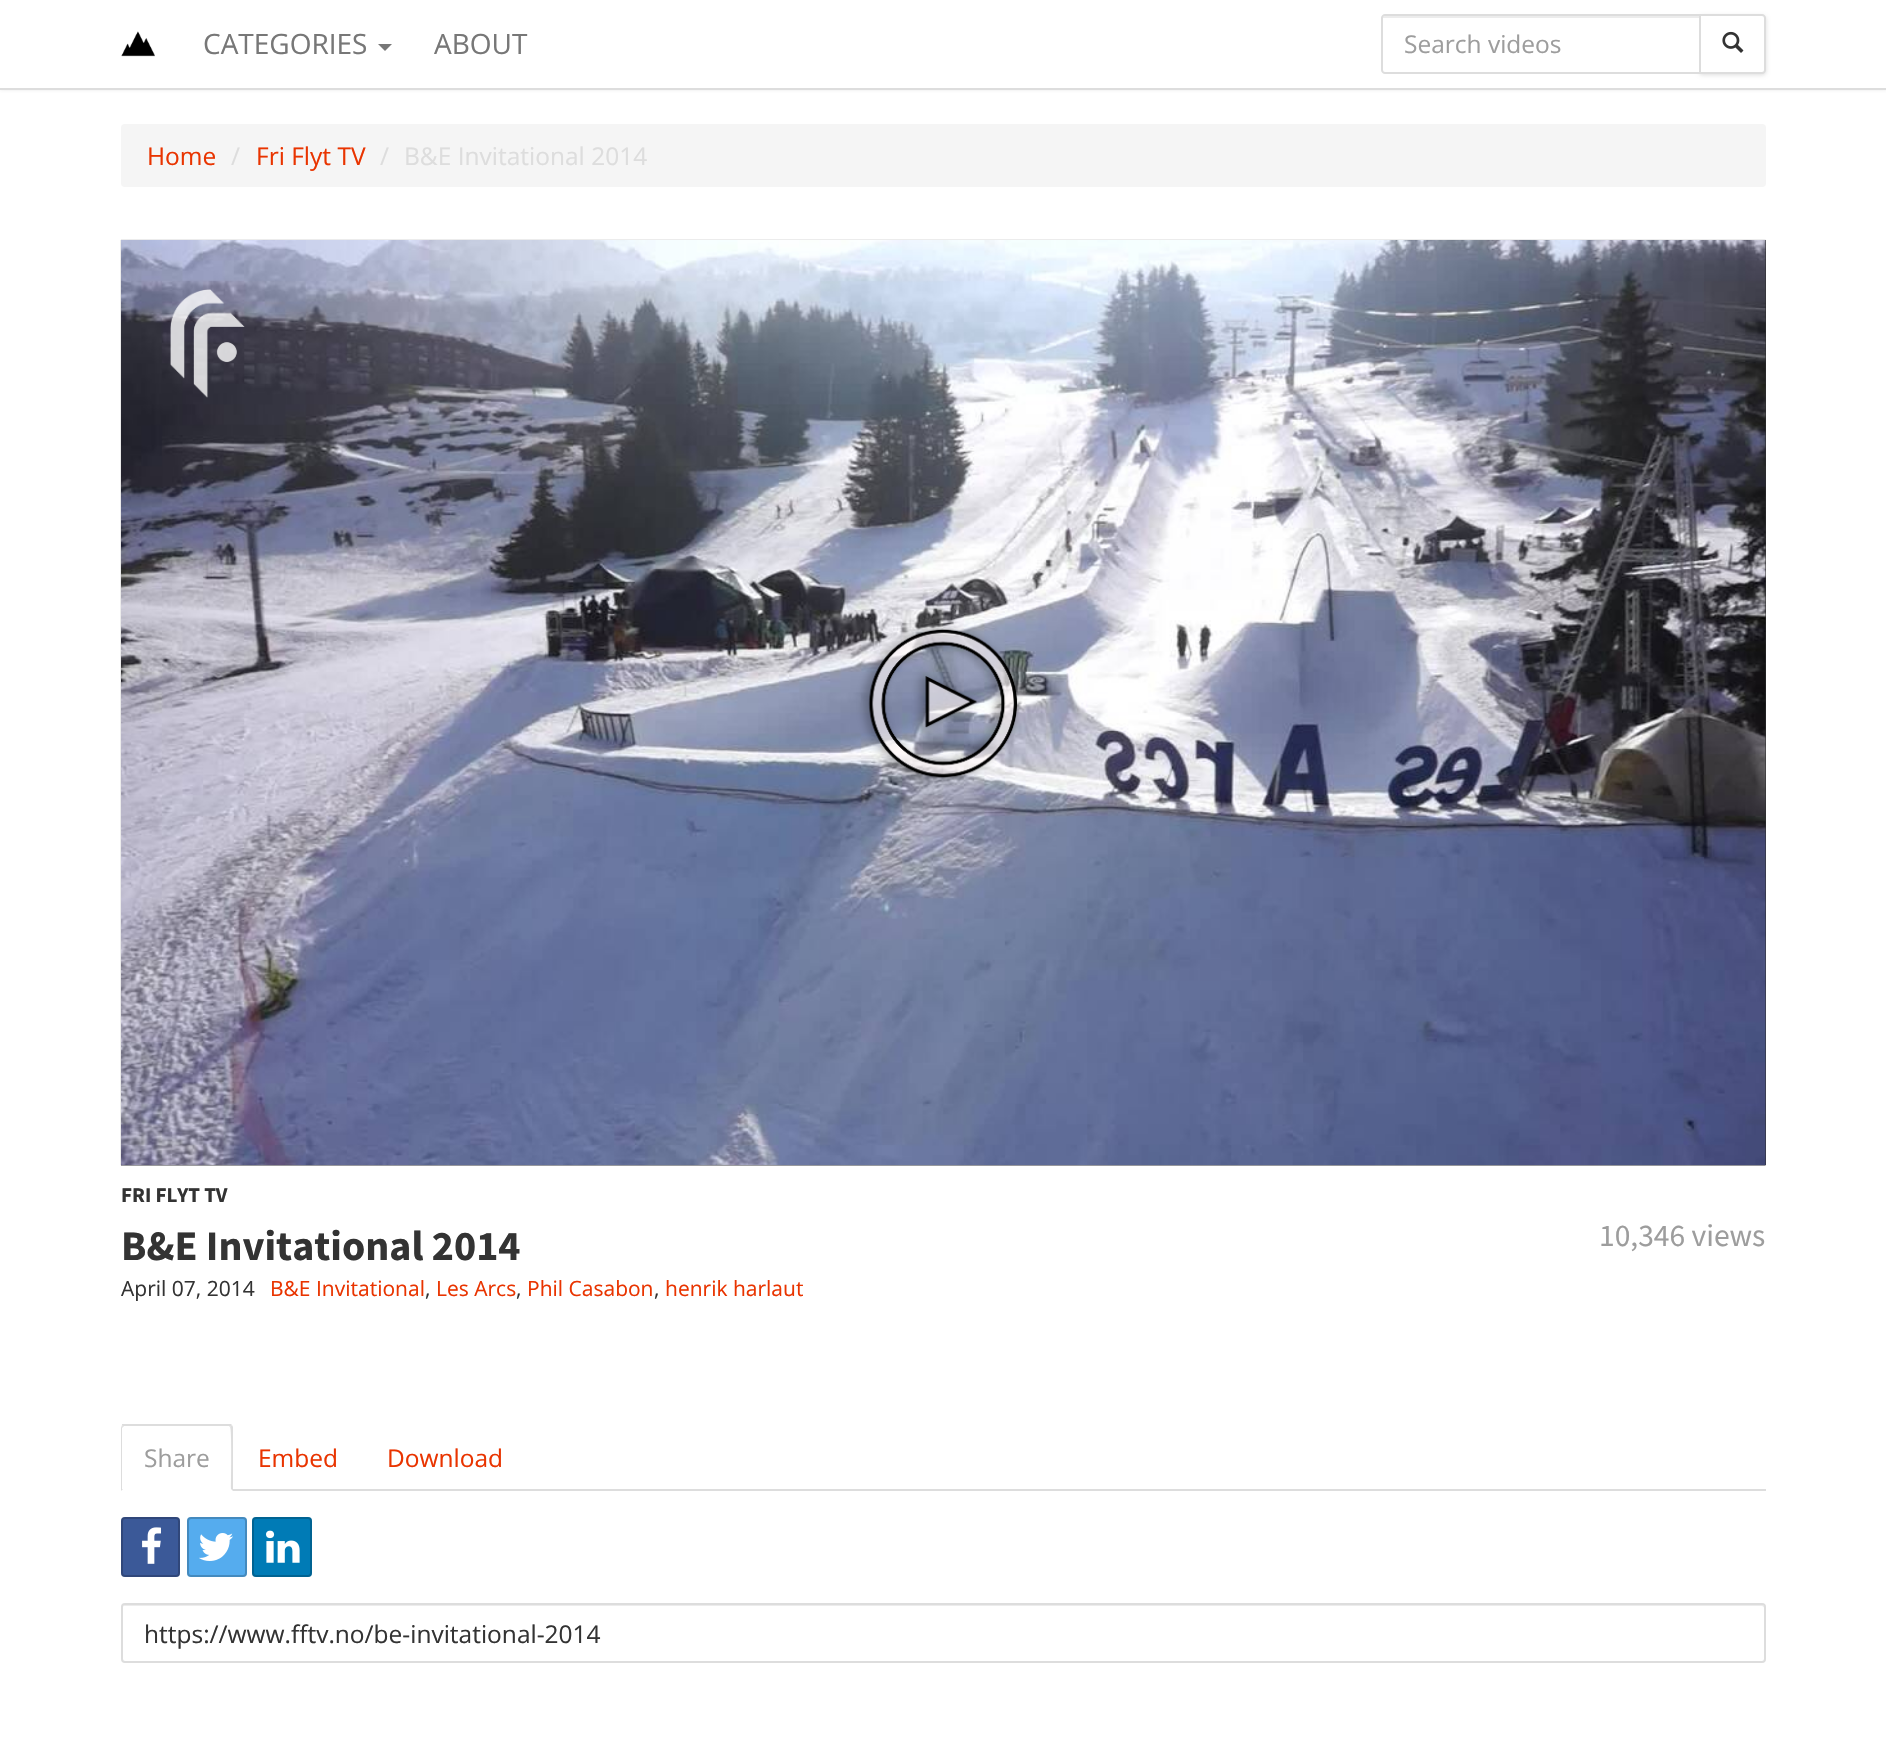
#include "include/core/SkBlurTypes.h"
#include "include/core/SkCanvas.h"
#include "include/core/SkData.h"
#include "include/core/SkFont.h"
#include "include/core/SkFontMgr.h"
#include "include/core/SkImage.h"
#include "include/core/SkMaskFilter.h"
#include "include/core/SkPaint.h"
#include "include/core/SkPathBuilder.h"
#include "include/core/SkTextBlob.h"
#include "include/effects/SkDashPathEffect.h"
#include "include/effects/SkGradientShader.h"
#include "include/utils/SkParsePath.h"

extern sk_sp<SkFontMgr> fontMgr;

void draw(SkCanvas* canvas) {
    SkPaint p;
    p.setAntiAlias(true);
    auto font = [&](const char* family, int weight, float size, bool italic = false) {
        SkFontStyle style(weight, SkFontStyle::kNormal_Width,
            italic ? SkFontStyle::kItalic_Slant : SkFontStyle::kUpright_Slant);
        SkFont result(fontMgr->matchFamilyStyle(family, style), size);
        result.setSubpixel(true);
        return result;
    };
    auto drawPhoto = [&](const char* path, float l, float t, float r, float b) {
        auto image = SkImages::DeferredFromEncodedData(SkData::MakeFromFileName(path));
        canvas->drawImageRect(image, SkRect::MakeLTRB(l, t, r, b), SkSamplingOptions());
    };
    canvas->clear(0xFFFFFFFF);
    canvas->save();
    canvas->clipRect(SkRect::MakeLTRB(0, 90, 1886, 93));
    p.setColor(0xFFDDDDDD);
    p.setMaskFilter(SkMaskFilter::MakeBlur(kNormal_SkBlurStyle, 2));
    canvas->drawRect(SkRect::MakeLTRB(0, 0, 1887, 89), p);
    p.setMaskFilter(nullptr);
    canvas->restore();
    canvas->drawRect(SkRect::MakeLTRB(0, 88, 1886, 90), p);
    drawPhoto("media/1.png", 121, 31, 155, 57);
    auto font1 = font("Open Sans", 400, 28);
    p.setColor(0xFF777777);
    canvas->drawString("CATEGORIES", 203, 54, font1, p);
    canvas->drawPath(SkPathBuilder().moveTo(378, 44).lineTo(392, 44).lineTo(385, 51).close().detach(), p);
    canvas->drawString("ABOUT", 434, 54, font1, p);
    p.setColor(0xFFDDDDDD);
    p.setMaskFilter(SkMaskFilter::MakeBlur(kNormal_SkBlurStyle, 2));
    canvas->drawRoundRect(SkRect::MakeLTRB(1699, 16, 1766, 75), 4, 4, p);
    p.setMaskFilter(nullptr);
    p.setColor(0xFFFFFFFF);
    canvas->drawPath(SkPathBuilder().moveTo(1700, 15).lineTo(1762, 15).cubicTo(1763.5f, 15, 1765, 16.5f, 1765, 18).lineTo(1765, 70).cubicTo(1765, 71.5f, 1763.5f, 73, 1762, 73).lineTo(1700, 73).close().detach(), p);
    p.setStyle(SkPaint::kStroke_Style);
    p.setStrokeWidth(2);
    p.setColor(0xFFDDDDDD);
    canvas->drawPath(SkPathBuilder().moveTo(1700, 15).lineTo(1762, 15).cubicTo(1763.5f, 15, 1765, 16.5f, 1765, 18).lineTo(1765, 70).cubicTo(1765, 71.5f, 1763.5f, 73, 1762, 73).lineTo(1700, 73).close().detach(), p);
    p.setStyle(SkPaint::kFill_Style);
    p.setColor(0xFFFFFFFF);
    canvas->drawPath(SkPathBuilder().moveTo(1385, 14).lineTo(1701, 14).lineTo(1701, 74).lineTo(1385, 74).cubicTo(1383, 74, 1381, 72, 1381, 70).lineTo(1381, 18).cubicTo(1381, 16, 1383, 14, 1385, 14).close().detach(), p);
    p.setColor(0xFFECECEC);
    canvas->drawPath(SkPathBuilder().moveTo(1384, 18).lineTo(1699, 18).lineTo(1699, 16).lineTo(1385, 16).cubicTo(1384, 16, 1383, 17, 1383, 18).close().detach(), p);
    p.setStyle(SkPaint::kStroke_Style);
    p.setColor(0xFFDDDDDD);
    canvas->drawPath(SkPathBuilder().moveTo(1385, 15).lineTo(1700, 15).lineTo(1700, 73).lineTo(1385, 73).cubicTo(1383.5f, 73, 1382, 71.5f, 1382, 70).lineTo(1382, 18).cubicTo(1382, 16.5f, 1383.5f, 15, 1385, 15).close().detach(), p);
    auto font2 = font("Open Sans", 400, 24.5f);
    p.setStyle(SkPaint::kFill_Style);
    p.setColor(0xFF9D9D9D);
    canvas->drawString("Search videos", 1404, 53, font2, p);
    drawPhoto("media/2.png", 1722, 31, 1744, 53);
    p.setColor(0xFFF5F5F5);
    canvas->drawRoundRect(SkRect::MakeLTRB(121, 124, 1766, 187), 4, 4, p);
    p.setColor(0xFFE93400);
    canvas->drawString("Home", 147, 165, font2, p);
    p.setColor(0xFFDDDDDD);
    canvas->drawString("/", 231, 165, font2, p);
    p.setColor(0xFFE93400);
    canvas->drawString("Fri Flyt TV", 256, 165, font2, p);
    p.setColor(0xFFDDDDDD);
    canvas->drawString("/", 380, 165, font2, p);
    canvas->drawString("B&E Invitational 2014", 404, 165, font2, p);
    drawPhoto("media/3.png", 120, 239, 1766, 1166);
    auto font3 = font("Source Sans Pro", 700, 21);
    p.setColor(0xFF333333);
    canvas->drawString("FRI FLYT TV", 121, 1202, font3, p);
    auto font4 = font("Source Sans Pro", 700, 42);
    canvas->drawString("B&E Invitational 2014", 121, 1260, font4, p);
    auto font5 = font("Source Sans Pro", 400, 31.5f);
    p.setColor(0xFF9D9D9D);
    canvas->drawString("10,346 views", 1599, 1246, font5, p);
    auto font6 = font("Open Sans", 400, 21);
    p.setColor(0xFF333333);
    canvas->drawString("April 07, 2014", 121, 1296, font6, p);
    p.setColor(0xFFE93400);
    canvas->drawString("B&E Invitational", 270, 1296, font6, p);
    p.setColor(0xFF333333);
    canvas->drawString(",", 425, 1296, font6, p);
    p.setColor(0xFFE93400);
    canvas->drawString("Les Arcs", 436, 1296, font6, p);
    p.setColor(0xFF333333);
    canvas->drawString(",", 516, 1296, font6, p);
    p.setColor(0xFFE93400);
    canvas->drawString("Phil Casabon", 527, 1296, font6, p);
    p.setColor(0xFF333333);
    canvas->drawString(",", 654, 1296, font6, p);
    p.setColor(0xFFE93400);
    canvas->drawString("henrik harlaut", 665, 1296, font6, p);
    p.setColor(0xFFDDDDDD);
    canvas->drawRect(SkRect::MakeLTRB(233, 1489, 1766, 1491), p);
    canvas->drawPath(SkPathBuilder().moveTo(124, 1426).lineTo(123, 1427).lineTo(122, 1425).lineTo(122, 1424).lineTo(231, 1424).lineTo(232, 1425).lineTo(230, 1427).lineTo(229, 1426).close().detach(), p);
    canvas->drawPath(SkPathBuilder().moveTo(233, 1427).lineTo(233, 1491).lineTo(231, 1489).cubicTo(231, 1482, 232, 1428, 230, 1427).lineTo(232, 1425).close().detach(), p);
    canvas->drawPath(SkPathBuilder().moveTo(121, 1491).lineTo(121, 1428).lineTo(122, 1425).lineTo(123, 1427).lineTo(122, 1428).lineTo(122, 1489).lineTo(123, 1489).close().detach(), p);
    p.setColor(0xFF9D9D9D);
    canvas->drawString("Share", 144, 1467, font2, p);
    p.setColor(0xFFE93400);
    canvas->drawString("Embed", 258, 1467, font2, p);
    canvas->drawString("Download", 387, 1467, font2, p);
    p.setColor(0xFF3B5998);
    canvas->drawRoundRect(SkRect::MakeLTRB(121, 1517, 180, 1577), 4, 4, p);
    p.setStyle(SkPaint::kStroke_Style);
    p.setColor(0x33000000);
    canvas->drawRoundRect(SkRect::MakeLTRB(122, 1518, 179, 1576), 3, 3, p);
    drawPhoto("media/4.png", 142, 1527, 161, 1564);
    p.setStyle(SkPaint::kFill_Style);
    p.setColor(0xFF55ACEE);
    canvas->drawRoundRect(SkRect::MakeLTRB(187, 1517, 247, 1577), 4, 4, p);
    p.setStyle(SkPaint::kStroke_Style);
    p.setColor(0x33000000);
    canvas->drawRoundRect(SkRect::MakeLTRB(188, 1518, 246, 1576), 3, 3, p);
    drawPhoto("media/5.png", 199, 1533, 233, 1561);
    p.setStyle(SkPaint::kFill_Style);
    p.setColor(0xFF007BB6);
    canvas->drawRoundRect(SkRect::MakeLTRB(252, 1517, 312, 1577), 4, 4, p);
    p.setStyle(SkPaint::kStroke_Style);
    p.setColor(0x33000000);
    canvas->drawRoundRect(SkRect::MakeLTRB(253, 1518, 311, 1576), 3, 3, p);
    drawPhoto("media/6.png", 266, 1530, 300, 1563);
    p.setStyle(SkPaint::kFill_Style);
    p.setColor(0xFFECECEC);
    canvas->drawPath(SkPathBuilder().moveTo(124, 1606).lineTo(1762, 1606).cubicTo(1763, 1606, 1764, 1607, 1764, 1608).cubicTo(1764, 1607, 1764, 1605, 1762, 1605).lineTo(125, 1605).lineTo(123, 1606).close().detach(), p);
    p.setStyle(SkPaint::kStroke_Style);
    p.setColor(0xFFDDDDDD);
    canvas->drawRoundRect(SkRect::MakeLTRB(122, 1604, 1765, 1662), 3, 3, p);
    p.setStyle(SkPaint::kFill_Style);
    p.setColor(0xFF333333);
    canvas->drawString("https://www.fftv.no/be-invitational-2014", 144, 1643, font2, p);
}
